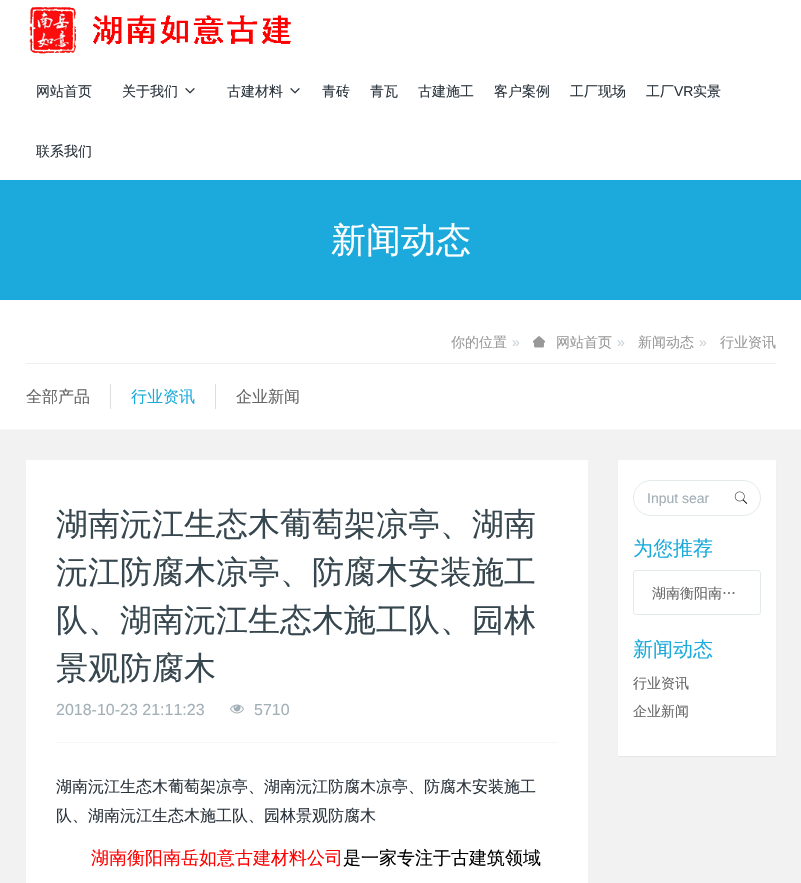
#include "include/core/SkBlurTypes.h"
#include "include/core/SkCanvas.h"
#include "include/core/SkData.h"
#include "include/core/SkFont.h"
#include "include/core/SkFontMgr.h"
#include "include/core/SkImage.h"
#include "include/core/SkMaskFilter.h"
#include "include/core/SkPaint.h"
#include "include/core/SkPathBuilder.h"
#include "include/core/SkTextBlob.h"
#include "include/effects/SkDashPathEffect.h"
#include "include/effects/SkGradientShader.h"
#include "include/utils/SkParsePath.h"

extern sk_sp<SkFontMgr> fontMgr;

void draw(SkCanvas* canvas) {
    SkPaint p;
    p.setAntiAlias(true);
    auto font = [&](const char* family, int weight, float size, bool italic = false) {
        SkFontStyle style(weight, SkFontStyle::kNormal_Width,
            italic ? SkFontStyle::kItalic_Slant : SkFontStyle::kUpright_Slant);
        SkFont result(fontMgr->matchFamilyStyle(family, style), size);
        result.setSubpixel(true);
        return result;
    };
    auto drawPhoto = [&](const char* path, float l, float t, float r, float b) {
        auto image = SkImages::DeferredFromEncodedData(SkData::MakeFromFileName(path));
        canvas->drawImageRect(image, SkRect::MakeLTRB(l, t, r, b), SkSamplingOptions());
    };
    canvas->clear(0xFFFFFFFF);
    drawPhoto("media/1.png", 29, 7, 291, 54);
    auto font1 = font("WenQuanYi Zen Hei", 500, 14);
    p.setColor(0xFF2A333C);
    canvas->drawString("网站首页", 36, 96, font1, p);
    canvas->drawString("关于我们", 122, 96, font1, p);
    drawPhoto("media/2.png", 185, 88, 195, 94);
    canvas->drawString("古建材料", 227, 96, font1, p);
    drawPhoto("media/2.png", 290, 88, 300, 94);
    {
        const struct { const char* s; float x, y; } items[] = {
            {"青砖", 322, 96},
            {"青瓦", 370, 96},
            {"古建施工", 418, 96},
            {"客户案例", 494, 96},
            {"工厂现场", 570, 96},
            {"工厂", 646, 96},
        };
        for (auto [s, x, y] : items) {
            canvas->drawString(s, x, y, font1, p);
        }
    }
    auto font2 = font("Liberation Sans", 400, 14);
    canvas->drawString("VR", 674, 96, font2, p);
    canvas->drawString("实景", 693, 96, font1, p);
    canvas->save();
    canvas->clipRect(SkRect::MakeLTRB(36, 120, 92, 180));
    canvas->drawString("联系我们", 36, 156, font1, p);
    canvas->restore();
    p.setColor(0xFF1BAADB);
    canvas->drawRect(SkRect::MakeLTRB(0, 180, 801, 300), p);
    auto font3 = font("WenQuanYi Zen Hei", 500, 35);
    p.setColor(0xFFFFFFFF);
    canvas->drawString("新闻动态", 331, 252, font3, p);
    p.setColor(0xFFEEEEEE);
    canvas->drawRect(SkRect::MakeLTRB(26, 363, 776, 364), p);
    p.setColor(0xFF999999);
    canvas->drawString("你的位置", 451, 347, font1, p);
    p.setColor(0xFFCCD5DB);
    canvas->drawString("»", 512, 347, font2, p);
    drawPhoto("media/3.png", 532, 336, 546, 348);
    p.setColor(0xFF999999);
    canvas->drawString("网站首页", 556, 347, font1, p);
    p.setColor(0xFFCCD5DB);
    canvas->drawString("»", 617, 347, font2, p);
    p.setColor(0xFF999999);
    canvas->drawString("新闻动态", 638, 347, font1, p);
    p.setColor(0xFFCCD5DB);
    canvas->drawString("»", 699, 347, font2, p);
    p.setColor(0xFF999999);
    canvas->drawString("行业资讯", 720, 347, font1, p);
    auto font4 = font("WenQuanYi Zen Hei", 500, 16);
    p.setColor(0xFF666666);
    canvas->drawString("全部产品", 26, 402, font4, p);
    p.setColor(0xFFDDDDDD);
    canvas->drawRect(SkRect::MakeLTRB(110, 384, 111, 409), p);
    p.setColor(0xFF1BAADB);
    canvas->drawString("行业资讯", 131, 402, font4, p);
    p.setColor(0xFFDDDDDD);
    canvas->drawRect(SkRect::MakeLTRB(215, 384, 216, 409), p);
    p.setColor(0xFF666666);
    canvas->drawString("企业新闻", 236, 402, font4, p);
    {
        const struct { float l, t, r, b; SkColor color; } items[] = {
            {0, 430, 801, 883, 0xFFF2F2F2},
            {0, 429, 801, 430, 0xFFF7F7F7},
            {26, 460, 588, 883, 0xFFFFFFFF},
        };
        for (auto [l, t, r, b, color] : items) {
            p.setColor(color);
            canvas->drawRect(SkRect::MakeLTRB(l, t, r, b), p);
        }
    }
    auto font5 = font("WenQuanYi Zen Hei", 500, 32);
    p.setColor(0xFF37474F);
    {
        const struct { const char* s; float x, y; } items[] = {
            {"湖南沅江生态木葡萄架凉亭、湖南", 56, 535},
            {"沅江防腐木凉亭、防腐木安装施工", 56, 583},
            {"队、湖南沅江生态木施工队、园林", 56, 631},
            {"景观防腐木", 56, 679},
        };
        for (auto [s, x, y] : items) {
            canvas->drawString(s, x, y, font5, p);
        }
    }
    p.setColor(0xFFF7F7F7);
    canvas->drawRect(SkRect::MakeLTRB(56, 742, 558, 743), p);
    auto font6 = font("Liberation Sans", 400, 16);
    p.setColor(0xFFA3AFB7);
    canvas->drawString("2018-10-23 21:11:23", 56, 715, font6, p);
    drawPhoto("media/4.png", 230, 704, 244, 714);
    canvas->drawString("5710", 254, 715, font6, p);
    p.setColor(0xFF2A333C);
    canvas->drawString("湖南沅江生态木葡萄架凉亭、湖南沅江防腐木凉亭、防腐木安装施工", 56, 792, font4, p);
    canvas->drawString("队、湖南沅江生态木施工队、园林景观防腐木", 56, 821, font4, p);
    auto font7 = font("WenQuanYi Zen Hei", 500, 18);
    p.setColor(0xFFFF0000);
    canvas->drawString("湖南衡阳南岳如意古建材料公司", 91, 864, font7, p);
    p.setColor(0xFF000000);
    canvas->drawString("是一家专注于古建筑领域", 343, 864, font7, p);
    p.setColor(0x0D000000);
    p.setMaskFilter(SkMaskFilter::MakeBlur(kNormal_SkBlurStyle, 0.5f));
    canvas->drawRoundRect(SkRect::MakeLTRB(618, 461, 776, 757), 1, 1, p);
    p.setMaskFilter(nullptr);
    p.setColor(0xFFFFFFFF);
    canvas->drawRoundRect(SkRect::MakeLTRB(618, 460, 776, 756), 1, 1, p);
    p.setStyle(SkPaint::kStroke_Style);
    p.setStrokeWidth(1);
    p.setColor(0xFFE4EAEC);
    canvas->drawRoundRect(SkRect::MakeLTRB(633.5f, 480.5f, 760.5f, 515.5f), 17.5f, 17.5f, p);
    p.setStyle(SkPaint::kFill_Style);
    p.setColor(0xFFA3AFB7);
    canvas->drawString("Input sear", 647, 503, font2, p);
    drawPhoto("media/5.png", 734, 491, 748, 504);
    auto font8 = font("WenQuanYi Zen Hei", 500, 20);
    p.setColor(0xFF1BAADB);
    canvas->drawString("为您推荐", 633, 555, font8, p);
    p.setStyle(SkPaint::kStroke_Style);
    p.setColor(0xFFE4EAEC);
    canvas->drawRoundRect(SkRect::MakeLTRB(633.5f, 570.5f, 760.5f, 614.5f), 2.5f, 2.5f, p);
    p.setStyle(SkPaint::kFill_Style);
    p.setColor(0xFF666666);
    canvas->drawString("湖南衡阳南…", 652, 598, font1, p);
    p.setColor(0xFF1BAADB);
    canvas->drawString("新闻动态", 633, 656, font8, p);
    p.setColor(0xFF666666);
    canvas->drawString("行业资讯", 633, 688, font1, p);
    canvas->drawString("企业新闻", 633, 716, font1, p);
}
